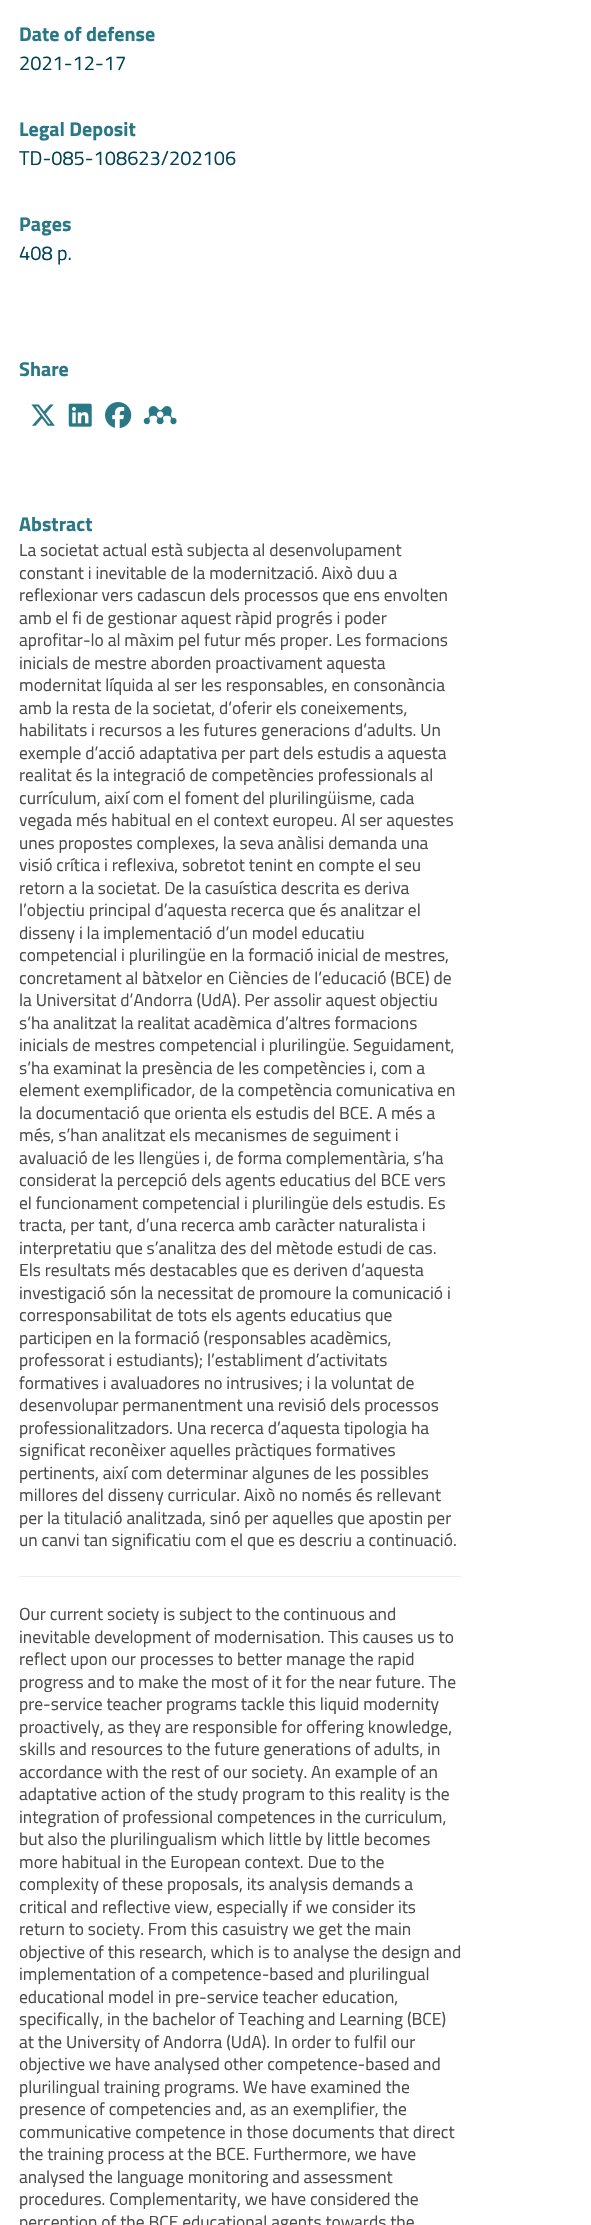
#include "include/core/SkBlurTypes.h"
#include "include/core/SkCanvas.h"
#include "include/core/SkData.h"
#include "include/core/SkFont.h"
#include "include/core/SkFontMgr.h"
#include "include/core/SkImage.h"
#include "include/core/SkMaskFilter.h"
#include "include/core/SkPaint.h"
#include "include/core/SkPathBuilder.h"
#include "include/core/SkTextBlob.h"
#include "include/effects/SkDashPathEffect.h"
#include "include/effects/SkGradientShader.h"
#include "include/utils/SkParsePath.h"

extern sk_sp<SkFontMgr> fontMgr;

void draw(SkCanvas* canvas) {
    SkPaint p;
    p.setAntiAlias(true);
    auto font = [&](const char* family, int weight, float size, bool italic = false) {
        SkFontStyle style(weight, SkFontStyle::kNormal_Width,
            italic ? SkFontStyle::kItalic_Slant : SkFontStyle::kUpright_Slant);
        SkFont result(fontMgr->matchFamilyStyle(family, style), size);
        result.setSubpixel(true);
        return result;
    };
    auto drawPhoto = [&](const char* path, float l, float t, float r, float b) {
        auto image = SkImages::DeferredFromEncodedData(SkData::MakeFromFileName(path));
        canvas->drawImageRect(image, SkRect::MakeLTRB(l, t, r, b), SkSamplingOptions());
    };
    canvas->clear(0xFFFFFFFF);
    auto font1 = font("Titillium Web", 700, 20);
    p.setColor(0xFF2A7886);
    canvas->drawString("Date of defense", 19, 41, font1, p);
    auto font2 = font("Titillium Web", 400, 20);
    p.setColor(0xFF004357);
    canvas->drawString("2021-12-17", 19, 70, font2, p);
    p.setColor(0xFF2A7886);
    canvas->drawString("Legal Deposit", 19, 136, font1, p);
    p.setColor(0xFF004357);
    canvas->drawString("TD-085-108623/202106", 19, 165, font2, p);
    p.setColor(0xFF2A7886);
    canvas->drawString("Pages", 19, 231, font1, p);
    p.setColor(0xFF004357);
    canvas->drawString("408 p.", 19, 260, font2, p);
    p.setColor(0xFF2A7886);
    canvas->drawString("Share", 19, 376, font1, p);
    drawPhoto("media/1.png", 31, 404, 55, 426);
    drawPhoto("media/2.png", 68, 403, 92, 427);
    drawPhoto("media/3.png", 105, 402, 132, 429);
    drawPhoto("media/4.png", 143, 406, 177, 425);
    canvas->drawString("Abstract", 19, 531, font1, p);
    auto font3 = font("Titillium Web", 400, 17.5f);
    p.setColor(0xFF4D4B4A);
    {
        const struct { const char* s; float x, y; } items[] = {
            {"La societat actual està subjecta al desenvolupament", 19, 556},
            {"constant i inevitable de la modernització. Això duu a", 19, 579},
            {"reflexionar vers cadascun dels processos que ens envolten", 19, 601},
            {"amb el fi de gestionar aquest ràpid progrés i poder", 19, 624},
            {"aprofitar-lo al màxim pel futur més proper. Les formacions", 19, 646},
            {"inicials de mestre aborden proactivament aquesta", 19, 669},
            {"modernitat líquida al ser les responsables, en consonància", 19, 691},
            {"amb la resta de la societat, d’oferir els coneixements,", 19, 714},
            {"habilitats i recursos a les futures generacions d’adults. Un", 19, 736},
            {"exemple d’acció adaptativa per part dels estudis a aquesta", 19, 759},
            {"realitat és la integració de competències professionals al", 19, 781},
            {"currículum, així com el foment del plurilingüisme, cada", 19, 804},
            {"vegada més habitual en el context europeu. Al ser aquestes", 19, 826},
            {"unes propostes complexes, la seva anàlisi demanda una", 19, 849},
            {"visió crítica i reflexiva, sobretot tenint en compte el seu", 19, 871},
            {"retorn a la societat. De la casuística descrita es deriva", 19, 894},
            {"l’objectiu principal d’aquesta recerca que és analitzar el", 19, 916},
            {"disseny i la implementació d’un model educatiu", 19, 939},
            {"competencial i plurilingüe en la formació inicial de mestres,", 19, 961},
            {"concretament al bàtxelor en Ciències de l’educació (BCE) de", 19, 984},
            {"la Universitat d’Andorra (UdA). Per assolir aquest objectiu", 19, 1006},
            {"s’ha analitzat la realitat acadèmica d’altres formacions", 19, 1029},
            {"inicials de mestres competencial i plurilingüe. Seguidament,", 19, 1051},
            {"s’ha examinat la presència de les competències i, com a", 19, 1074},
            {"element exemplificador, de la competència comunicativa en", 19, 1096},
            {"la documentació que orienta els estudis del BCE. A més a", 19, 1119},
            {"més, s’han analitzat els mecanismes de seguiment i", 19, 1141},
            {"avaluació de les llengües i, de forma complementària, s’ha", 19, 1164},
            {"considerat la percepció dels agents educatius del BCE vers", 19, 1186},
            {"el funcionament competencial i plurilingüe dels estudis. Es", 19, 1209},
            {"tracta, per tant, d’una recerca amb caràcter naturalista i", 19, 1231},
            {"interpretatiu que s’analitza des del mètode estudi de cas.", 19, 1254},
            {"Els resultats més destacables que es deriven d’aquesta", 19, 1276},
            {"investigació són la necessitat de promoure la comunicació i", 19, 1299},
            {"corresponsabilitat de tots els agents educatius que", 19, 1321},
            {"participen en la formació (responsables acadèmics,", 19, 1344},
            {"professorat i estudiants); l’establiment d’activitats", 19, 1366},
            {"formatives i avaluadores no intrusives; i la voluntat de", 19, 1389},
            {"desenvolupar permanentment una revisió dels processos", 19, 1411},
            {"professionalitzadors. Una recerca d’aquesta tipologia ha", 19, 1434},
            {"significat reconèixer aquelles pràctiques formatives", 19, 1456},
            {"pertinents, així com determinar algunes de les possibles", 19, 1479},
            {"millores del disseny curricular. Això no només és rellevant", 19, 1501},
            {"per la titulació analitzada, sinó per aquelles que apostin per", 19, 1524},
            {"un canvi tan significatiu com el que es descriu a continuació.", 19, 1546},
        };
        for (auto [s, x, y] : items) {
            canvas->drawString(s, x, y, font3, p);
        }
    }
    p.setColor(0xFFEEEEEE);
    canvas->drawRect(SkRect::MakeLTRB(19, 1576, 461, 1577), p);
    p.setColor(0xFF4D4B4A);
    {
        const struct { const char* s; float x, y; } items[] = {
            {"Our current society is subject to the continuous and", 19, 1620},
            {"inevitable development of modernisation. This causes us to", 19, 1643},
            {"reflect upon our processes to better manage the rapid", 19, 1665},
            {"progress and to make the most of it for the near future. The", 19, 1688},
            {"pre-service teacher programs tackle this liquid modernity", 19, 1710},
            {"proactively, as they are responsible for offering knowledge,", 19, 1733},
            {"skills and resources to the future generations of adults, in", 19, 1755},
            {"accordance with the rest of our society. An example of an", 19, 1778},
            {"adaptative action of the study program to this reality is the", 19, 1800},
            {"integration of professional competences in the curriculum,", 19, 1823},
            {"but also the plurilingualism which little by little becomes", 19, 1845},
            {"more habitual in the European context. Due to the", 19, 1868},
            {"complexity of these proposals, its analysis demands a", 19, 1890},
            {"critical and reflective view, especially if we consider its", 19, 1913},
            {"return to society. From this casuistry we get the main", 19, 1935},
            {"objective of this research, which is to analyse the design and", 19, 1958},
            {"implementation of a competence-based and plurilingual", 19, 1980},
            {"educational model in pre-service teacher education,", 19, 2003},
            {"specifically, in the bachelor of Teaching and Learning (BCE)", 19, 2025},
            {"at the University of Andorra (UdA). In order to fulfil our", 19, 2048},
            {"objective we have analysed other competence-based and", 19, 2070},
            {"plurilingual training programs. We have examined the", 19, 2093},
            {"presence of competencies and, as an exemplifier, the", 19, 2115},
            {"communicative competence in those documents that direct", 19, 2138},
            {"the training process at the BCE. Furthermore, we have", 19, 2160},
            {"analysed the language monitoring and assessment", 19, 2183},
            {"procedures. Complementarity, we have considered the", 19, 2205},
            {"perception of the BCE educational agents towards the", 19, 2228},
        };
        for (auto [s, x, y] : items) {
            canvas->drawString(s, x, y, font3, p);
        }
    }
}
